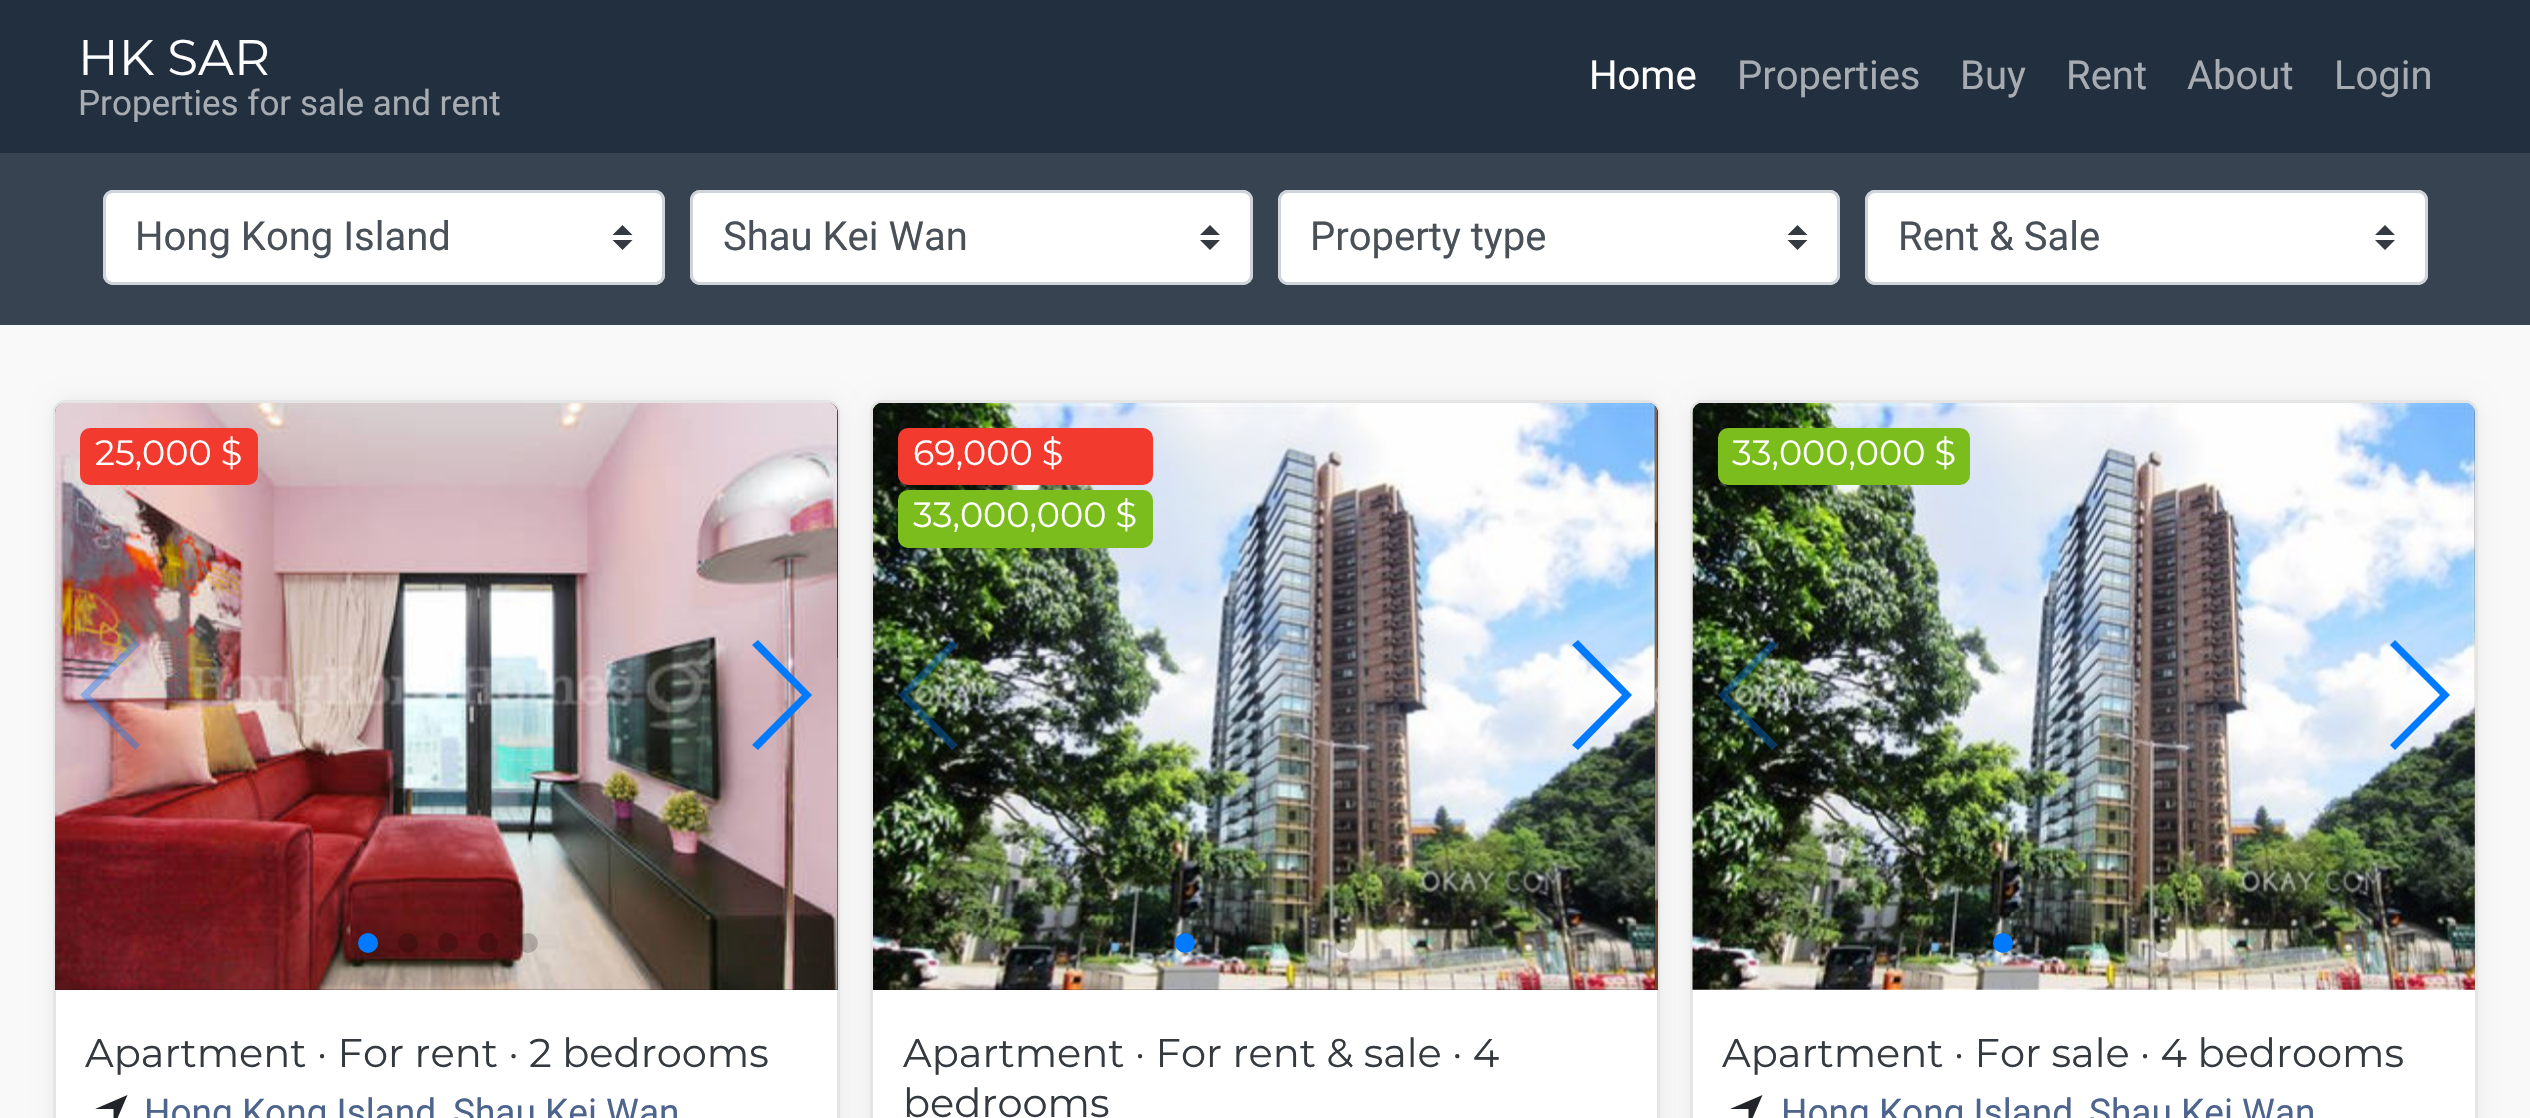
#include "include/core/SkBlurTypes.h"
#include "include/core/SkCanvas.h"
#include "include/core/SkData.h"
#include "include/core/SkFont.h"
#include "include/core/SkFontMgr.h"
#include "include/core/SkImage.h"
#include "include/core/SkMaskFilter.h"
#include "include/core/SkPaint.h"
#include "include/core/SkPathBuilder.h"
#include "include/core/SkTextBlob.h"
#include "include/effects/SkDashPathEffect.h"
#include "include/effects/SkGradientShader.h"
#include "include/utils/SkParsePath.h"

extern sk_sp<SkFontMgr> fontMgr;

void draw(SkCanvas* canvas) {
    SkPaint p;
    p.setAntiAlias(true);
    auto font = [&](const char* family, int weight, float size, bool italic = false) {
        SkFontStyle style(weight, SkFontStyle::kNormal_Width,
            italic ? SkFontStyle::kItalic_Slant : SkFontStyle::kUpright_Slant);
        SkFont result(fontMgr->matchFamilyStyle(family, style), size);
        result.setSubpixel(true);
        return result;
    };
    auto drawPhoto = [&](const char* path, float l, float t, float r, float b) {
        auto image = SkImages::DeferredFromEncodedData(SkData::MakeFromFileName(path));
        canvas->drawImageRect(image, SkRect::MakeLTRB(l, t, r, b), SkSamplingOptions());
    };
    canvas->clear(0xFFF9F9F9);
    p.setColor(0xFF222F3E);
    canvas->drawRect(SkRect::MakeLTRB(0, 0, 2530, 153), p);
    auto font1 = font("Montserrat", 400, 50);
    p.setColor(0xFFFFFFFF);
    canvas->drawString("HK SAR", 78, 75, font1, p);
    auto font2 = font("Roboto", 400, 35);
    p.setColor(0xFFA7ACB2);
    canvas->drawString("Properties for sale and rent", 78, 115, font2, p);
    auto font3 = font("Roboto", 400, 40);
    p.setColor(0xFFFFFFFF);
    canvas->drawString("Home", 1589, 89, font3, p);
    p.setColor(0xFFA7ACB2);
    {
        const struct { const char* s; float x, y; } items[] = {
            {"Properties", 1737, 89},
            {"Buy", 1960, 89},
            {"Rent", 2066, 89},
            {"About", 2187, 89},
            {"Login", 2334, 89},
        };
        for (auto [s, x, y] : items) {
            canvas->drawString(s, x, y, font3, p);
        }
    }
    p.setColor(0xFF374351);
    canvas->drawRect(SkRect::MakeLTRB(0, 153, 2530, 325), p);
    p.setColor(0xFFFFFFFF);
    canvas->drawRoundRect(SkRect::MakeLTRB(103, 190, 665, 285), 10, 10, p);
    p.setColor(0xFF343A40);
    canvas->drawPath(SkPathBuilder().moveTo(622.5f, 225).lineTo(612.5f, 235).lineTo(632.5f, 235).close().moveTo(622.5f, 250).lineTo(612.5f, 240).lineTo(632.5f, 240).close().detach(), p);
    p.setStyle(SkPaint::kStroke_Style);
    p.setStrokeWidth(3);
    p.setColor(0xFFCED4DA);
    canvas->drawRoundRect(SkRect::MakeLTRB(104.5f, 191.5f, 663.5f, 283.5f), 8.5f, 8.5f, p);
    p.setStyle(SkPaint::kFill_Style);
    p.setColor(0xFF495057);
    canvas->drawString("Hong Kong Island", 135, 250, font3, p);
    p.setColor(0xFFFFFFFF);
    canvas->drawRoundRect(SkRect::MakeLTRB(690, 190, 1253, 285), 10, 10, p);
    p.setColor(0xFF343A40);
    canvas->drawPath(SkPathBuilder().moveTo(1210, 225).lineTo(1200, 235).lineTo(1220, 235).close().moveTo(1210, 250).lineTo(1200, 240).lineTo(1220, 240).close().detach(), p);
    p.setStyle(SkPaint::kStroke_Style);
    p.setColor(0xFFCED4DA);
    canvas->drawRoundRect(SkRect::MakeLTRB(691.5f, 191.5f, 1251.5f, 283.5f), 8.5f, 8.5f, p);
    p.setStyle(SkPaint::kFill_Style);
    p.setColor(0xFF495057);
    canvas->drawString("Shau Kei Wan", 723, 250, font3, p);
    p.setColor(0xFFFFFFFF);
    canvas->drawRoundRect(SkRect::MakeLTRB(1278, 190, 1840, 285), 10, 10, p);
    p.setColor(0xFF343A40);
    canvas->drawPath(SkPathBuilder().moveTo(1797.5f, 225).lineTo(1787.5f, 235).lineTo(1807.5f, 235).close().moveTo(1797.5f, 250).lineTo(1787.5f, 240).lineTo(1807.5f, 240).close().detach(), p);
    p.setStyle(SkPaint::kStroke_Style);
    p.setColor(0xFFCED4DA);
    canvas->drawRoundRect(SkRect::MakeLTRB(1279.5f, 191.5f, 1838.5f, 283.5f), 8.5f, 8.5f, p);
    p.setStyle(SkPaint::kFill_Style);
    p.setColor(0xFF495057);
    canvas->drawString("Property type", 1310, 250, font3, p);
    p.setColor(0xFFFFFFFF);
    canvas->drawRoundRect(SkRect::MakeLTRB(1865, 190, 2428, 285), 10, 10, p);
    p.setColor(0xFF343A40);
    canvas->drawPath(SkPathBuilder().moveTo(2385, 225).lineTo(2375, 235).lineTo(2395, 235).close().moveTo(2385, 250).lineTo(2375, 240).lineTo(2395, 240).close().detach(), p);
    p.setStyle(SkPaint::kStroke_Style);
    p.setColor(0xFFCED4DA);
    canvas->drawRoundRect(SkRect::MakeLTRB(1866.5f, 191.5f, 2426.5f, 283.5f), 8.5f, 8.5f, p);
    p.setStyle(SkPaint::kFill_Style);
    p.setColor(0xFF495057);
    canvas->drawString("Rent & Sale", 1898, 250, font3, p);
    p.setColor(0x1A000000);
    p.setMaskFilter(SkMaskFilter::MakeBlur(kNormal_SkBlurStyle, 12.5f));
    canvas->drawRoundRect(SkRect::MakeLTRB(58, 405, 835, 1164), 8, 8, p);
    p.setMaskFilter(nullptr);
    p.setColor(0xFFFFFFFF);
    canvas->drawRoundRect(SkRect::MakeLTRB(53, 400, 840, 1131), 13, 13, p);
    p.setStyle(SkPaint::kStroke_Style);
    p.setColor(0x1A000000);
    canvas->drawRoundRect(SkRect::MakeLTRB(54.5f, 401.5f, 838.5f, 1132.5f), 11.5f, 11.5f, p);
    p.setStyle(SkPaint::kFill_Style);
    p.setMaskFilter(SkMaskFilter::MakeBlur(kNormal_SkBlurStyle, 12.5f));
    canvas->drawRoundRect(SkRect::MakeLTRB(875, 405, 1655, 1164), 8, 8, p);
    p.setMaskFilter(nullptr);
    p.setColor(0xFF0E0E0E);
    canvas->drawPath(SkPathBuilder().moveTo(65, 403).lineTo(828, 403).cubicTo(833.5f, 403, 838, 407.5f, 838, 413).lineTo(838, 990).lineTo(55, 990).lineTo(55, 413).cubicTo(55, 407.5f, 59.5f, 403, 65, 403).close().detach(), p);
    drawPhoto("media/1.png", 55, 403, 838, 990);
    p.setColor(0x59007AFF);
    canvas->drawPath(SkPathBuilder().moveTo(80, 695).lineTo(135, 640).lineTo(140, 645).lineTo(90, 695).lineTo(140, 745).lineTo(135, 750).close().detach(), p);
    p.setColor(0xFF007AFF);
    canvas->drawPath(SkPathBuilder().moveTo(812, 695).lineTo(758, 750).lineTo(752, 745).lineTo(802, 695).lineTo(752, 645).lineTo(758, 640).close().detach(), p);
    canvas->drawCircle(368, 943, 10, p);
    p.setColor(0x33000000);
    canvas->drawCircle(408, 943, 10, p);
    canvas->drawCircle(448, 943, 10, p);
    canvas->drawCircle(488, 943, 10, p);
    canvas->drawCircle(528, 943, 10, p);
    p.setColor(0xFFF23A2E);
    canvas->drawRoundRect(SkRect::MakeLTRB(80, 428, 258, 485), 10, 10, p);
    auto font4 = font("Montserrat", 400, 35);
    p.setColor(0xFFFFFFFF);
    canvas->drawString("25,000 $", 95, 465, font4, p);
    auto font5 = font("Montserrat", 400, 40);
    p.setColor(0xFF343A40);
    canvas->drawString("Apartment · For rent · 2 bedrooms", 85, 1067, font5, p);
    p.setColor(0xFF212529);
    canvas->drawPath(SkPathBuilder().moveTo(127.5f, 1095).lineTo(113.5f, 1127.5f).lineTo(113.5f, 1109).lineTo(95, 1109).close().detach(), p);
    auto font6 = font("Roboto", 400, 37);
    p.setColor(0xFF4D648D);
    canvas->drawString("Hong Kong Island", 144, 1125, font6, p);
    canvas->drawString("Shau Kei Wan", 453, 1125, font6, p);
    p.setColor(0xFFFFFFFF);
    canvas->drawRoundRect(SkRect::MakeLTRB(870, 400, 1660, 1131), 13, 13, p);
    p.setStyle(SkPaint::kStroke_Style);
    p.setColor(0x1A000000);
    canvas->drawRoundRect(SkRect::MakeLTRB(871.5f, 401.5f, 1658.5f, 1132.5f), 11.5f, 11.5f, p);
    p.setStyle(SkPaint::kFill_Style);
    p.setMaskFilter(SkMaskFilter::MakeBlur(kNormal_SkBlurStyle, 12.5f));
    canvas->drawRoundRect(SkRect::MakeLTRB(1695, 405, 2473, 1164), 8, 8, p);
    p.setMaskFilter(nullptr);
    p.setColor(0xFF0E0E0E);
    canvas->drawPath(SkPathBuilder().moveTo(883, 403).lineTo(1648, 403).cubicTo(1653.5f, 403, 1658, 407.5f, 1658, 413).lineTo(1658, 990).lineTo(873, 990).lineTo(873, 413).cubicTo(873, 407.5f, 877.5f, 403, 883, 403).close().detach(), p);
    drawPhoto("media/2.png", 873, 403, 1656, 990);
    drawPhoto("media/3.png", 1655, 406, 1658, 990);
    p.setColor(0x59007AFF);
    canvas->drawPath(SkPathBuilder().moveTo(898, 695).lineTo(952, 640).lineTo(958, 645).lineTo(908, 695).lineTo(958, 745).lineTo(952, 750).close().detach(), p);
    p.setColor(0xFF007AFF);
    canvas->drawPath(SkPathBuilder().moveTo(1632, 695).lineTo(1578, 750).lineTo(1572, 745).lineTo(1622, 695).lineTo(1572, 645).lineTo(1578, 640).close().detach(), p);
    canvas->drawCircle(1185, 943, 10, p);
    p.setColor(0x33000000);
    canvas->drawCircle(1225, 943, 10, p);
    canvas->drawCircle(1265, 943, 10, p);
    canvas->drawCircle(1305, 943, 10, p);
    canvas->drawCircle(1345, 943, 10, p);
    p.setColor(0xFFF23A2E);
    canvas->drawRoundRect(SkRect::MakeLTRB(898, 428, 1153, 485), 10, 10, p);
    p.setColor(0xFFFFFFFF);
    canvas->drawString("69,000 $", 913, 465, font4, p);
    p.setColor(0xFF7CBD1E);
    canvas->drawRoundRect(SkRect::MakeLTRB(898, 490, 1153, 548), 10, 10, p);
    p.setColor(0xFFFFFFFF);
    canvas->drawString("33,000,000 $", 913, 527, font4, p);
    p.setColor(0xFF343A40);
    canvas->drawString("Apartment · For rent & sale · 4", 903, 1067, font5, p);
    canvas->drawString("bedrooms", 903, 1117, font5, p);
    p.setColor(0xFFFFFFFF);
    canvas->drawRoundRect(SkRect::MakeLTRB(1690, 400, 2478, 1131), 13, 13, p);
    p.setStyle(SkPaint::kStroke_Style);
    p.setColor(0x1A000000);
    canvas->drawRoundRect(SkRect::MakeLTRB(1691.5f, 401.5f, 2476.5f, 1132.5f), 11.5f, 11.5f, p);
    drawPhoto("media/4.png", 1692, 403, 2475, 990);
    drawPhoto("media/5.png", 2474, 408, 2475, 990);
    p.setStyle(SkPaint::kFill_Style);
    p.setColor(0x59007AFF);
    canvas->drawPath(SkPathBuilder().moveTo(1718, 695).lineTo(1772, 640).lineTo(1778, 645).lineTo(1728, 695).lineTo(1778, 745).lineTo(1772, 750).close().detach(), p);
    p.setColor(0xFF007AFF);
    canvas->drawPath(SkPathBuilder().moveTo(2450, 695).lineTo(2395, 750).lineTo(2390, 745).lineTo(2440, 695).lineTo(2390, 645).lineTo(2395, 640).close().detach(), p);
    canvas->drawCircle(2003, 943, 10, p);
    p.setColor(0x33000000);
    canvas->drawCircle(2043, 943, 10, p);
    canvas->drawCircle(2083, 943, 10, p);
    canvas->drawCircle(2123, 943, 10, p);
    canvas->drawCircle(2163, 943, 10, p);
    p.setColor(0xFF7CBD1E);
    canvas->drawRoundRect(SkRect::MakeLTRB(1718, 428, 1970, 485), 10, 10, p);
    p.setColor(0xFFFFFFFF);
    canvas->drawString("33,000,000 $", 1732, 465, font4, p);
    p.setColor(0xFF343A40);
    canvas->drawString("Apartment · For sale · 4 bedrooms", 1722, 1067, font5, p);
    p.setColor(0xFF212529);
    canvas->drawPath(SkPathBuilder().moveTo(1762.5f, 1095).lineTo(1748.5f, 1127.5f).lineTo(1748.5f, 1109).lineTo(1730, 1109).close().detach(), p);
    p.setColor(0xFF4D648D);
    canvas->drawString("Hong Kong Island", 1781, 1125, font6, p);
    canvas->drawString("Shau Kei Wan", 2089, 1125, font6, p);
}
